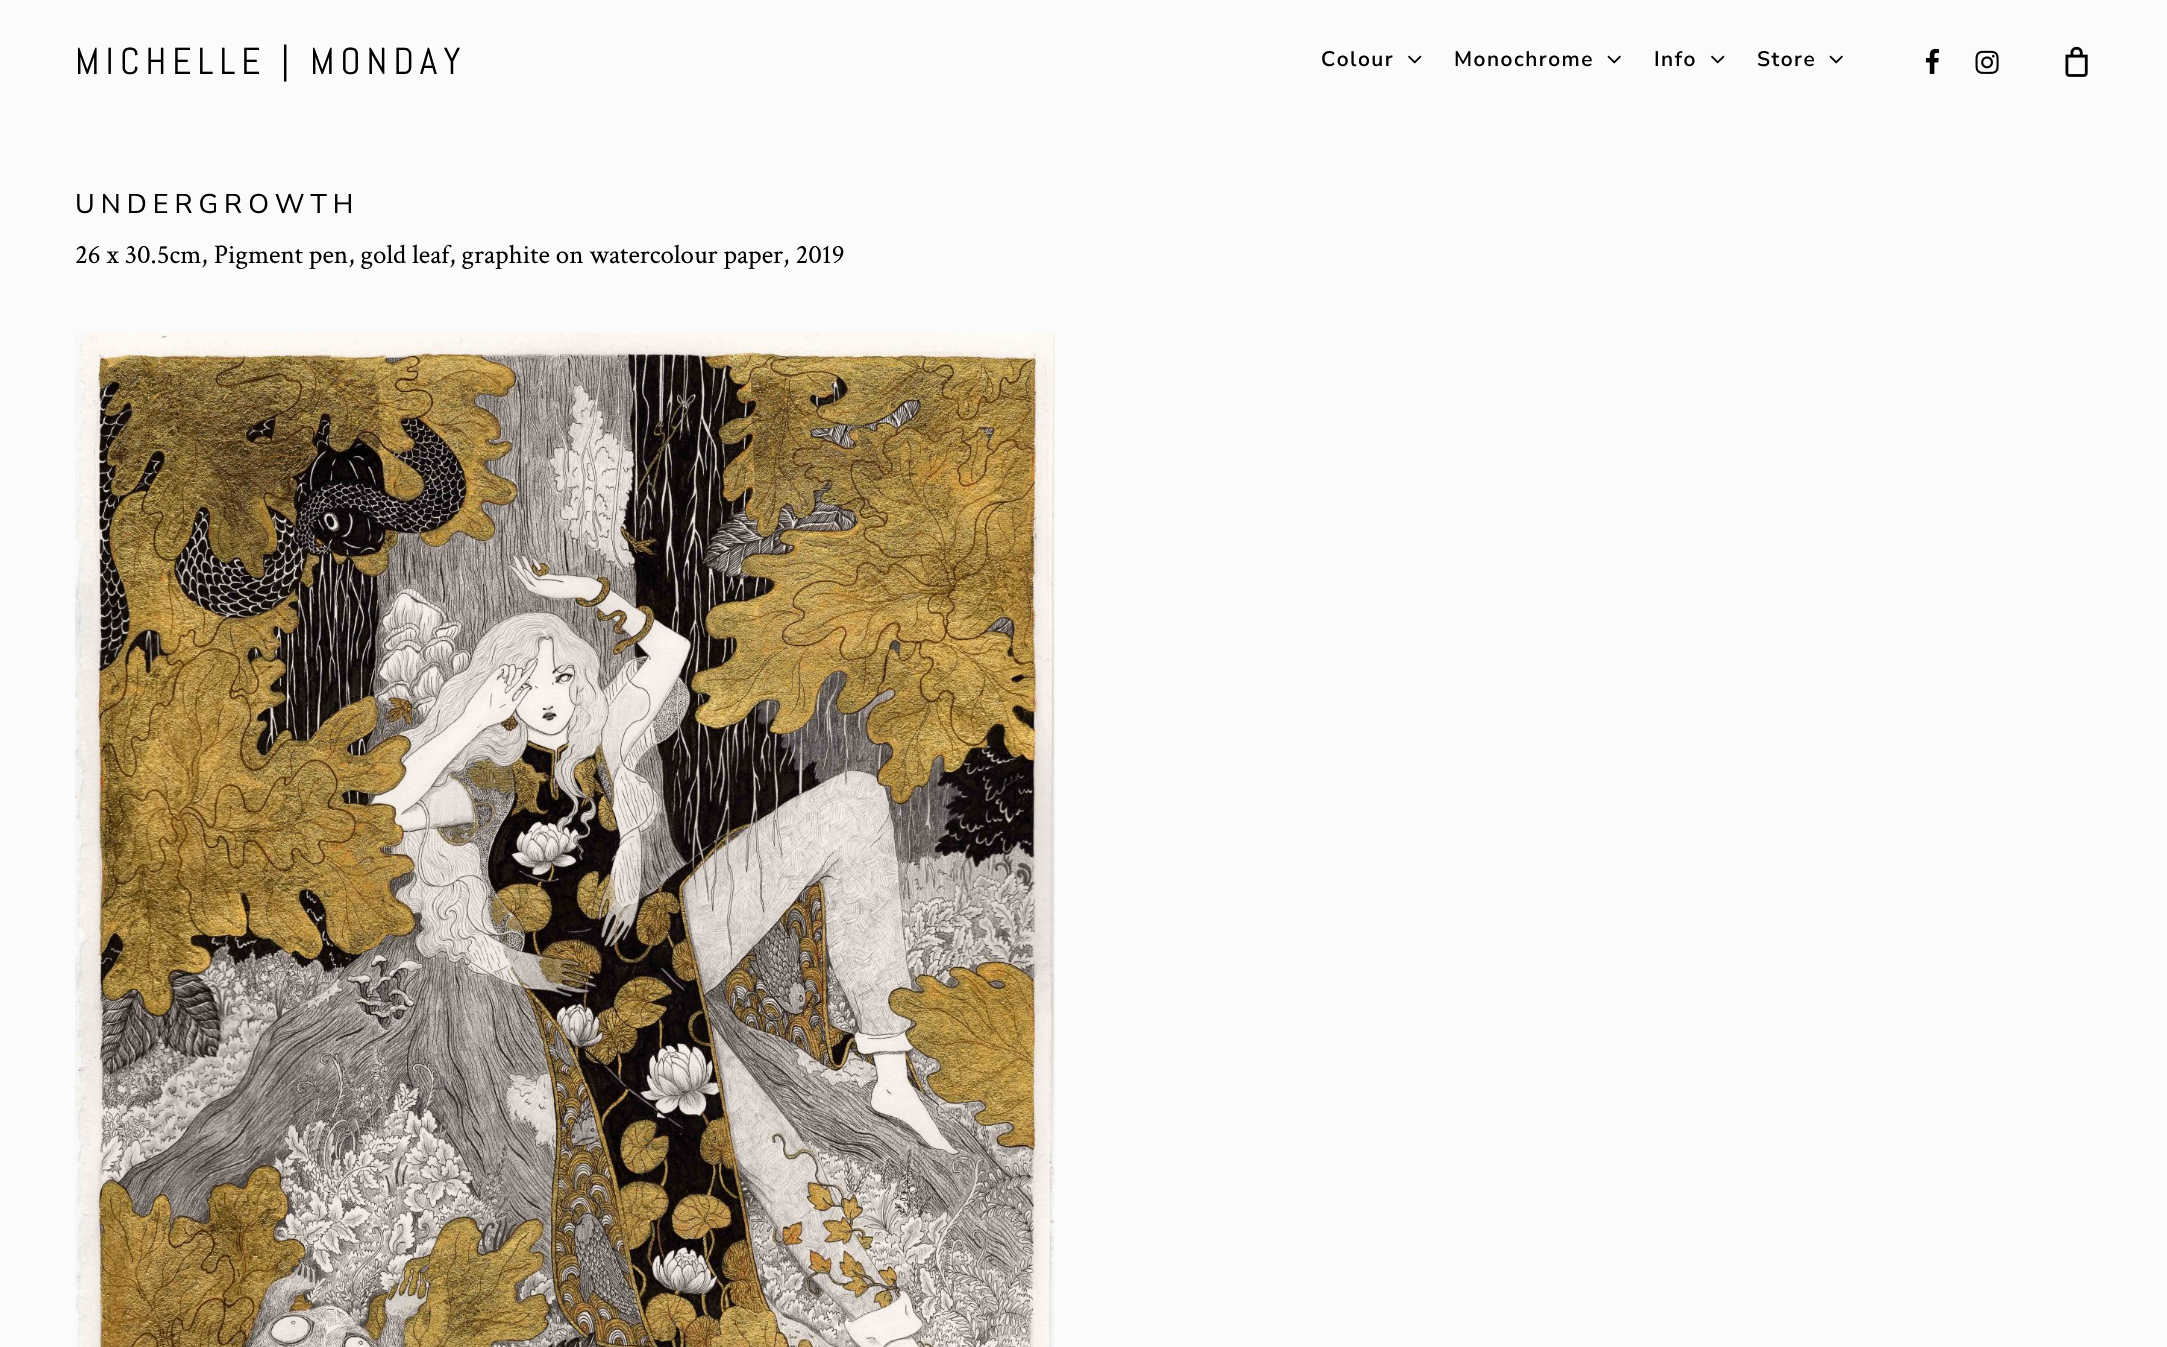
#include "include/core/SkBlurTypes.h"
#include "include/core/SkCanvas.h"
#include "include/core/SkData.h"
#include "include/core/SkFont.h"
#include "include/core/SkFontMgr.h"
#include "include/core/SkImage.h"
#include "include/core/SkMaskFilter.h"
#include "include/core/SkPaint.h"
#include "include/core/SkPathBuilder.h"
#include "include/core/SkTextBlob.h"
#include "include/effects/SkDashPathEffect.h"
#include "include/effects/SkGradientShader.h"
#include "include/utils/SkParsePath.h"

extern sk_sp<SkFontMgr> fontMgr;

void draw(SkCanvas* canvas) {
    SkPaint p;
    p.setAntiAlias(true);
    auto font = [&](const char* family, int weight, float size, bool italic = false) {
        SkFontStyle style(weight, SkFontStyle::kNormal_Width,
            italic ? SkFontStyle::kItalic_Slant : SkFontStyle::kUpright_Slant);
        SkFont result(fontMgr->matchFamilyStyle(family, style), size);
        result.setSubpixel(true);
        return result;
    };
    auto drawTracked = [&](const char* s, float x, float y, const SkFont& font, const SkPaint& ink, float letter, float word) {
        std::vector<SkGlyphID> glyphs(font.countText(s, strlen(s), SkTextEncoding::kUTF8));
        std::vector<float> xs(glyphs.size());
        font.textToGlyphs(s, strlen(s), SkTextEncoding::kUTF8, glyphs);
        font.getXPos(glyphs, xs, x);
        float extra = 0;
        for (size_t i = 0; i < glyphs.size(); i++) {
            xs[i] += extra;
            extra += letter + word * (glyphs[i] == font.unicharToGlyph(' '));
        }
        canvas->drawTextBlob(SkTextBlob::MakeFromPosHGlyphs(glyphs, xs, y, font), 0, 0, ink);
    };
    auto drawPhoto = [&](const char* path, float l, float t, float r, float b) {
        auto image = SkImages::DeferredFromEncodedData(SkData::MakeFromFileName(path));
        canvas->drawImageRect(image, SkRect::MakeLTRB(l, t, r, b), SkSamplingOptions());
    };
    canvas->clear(0xFFFBFBFB);
    auto font1 = font("Abel", 400, 37.5f);
    p.setColor(0xFF000000);
    drawTracked("MICHELLE | MONDAY", 75, 74, font1, p, 6, 0);
    auto font2 = font("Nunito Sans", 600, 21);
    drawTracked("Colour", 1321, 66, font2, p, 1.5f, 0);
    drawPhoto("media/1.png", 1408, 55, 1422, 64);
    drawTracked("Monochrome", 1454, 66, font2, p, 1.5f, 0);
    drawPhoto("media/2.png", 1607, 55, 1621, 64);
    drawTracked("Info", 1654, 66, font2, p, 1.5f, 0);
    drawPhoto("media/1.png", 1711, 55, 1725, 64);
    drawTracked("Store", 1757, 66, font2, p, 1.5f, 0);
    drawPhoto("media/2.png", 1829, 55, 1843, 64);
    drawPhoto("media/3.png", 1925, 48, 1939, 74);
    drawPhoto("media/4.png", 1975, 50, 1999, 74);
    drawPhoto("media/5.png", 2065, 46, 2088, 77);
    auto font3 = font("Nunito Sans", 400, 27);
    drawTracked("UNDERGROWTH", 75, 213, font3, p, 6, 0);
    auto font4 = font("Crimson Text", 400, 27);
    canvas->drawString("26 x 30.5cm, Pigment pen, gold leaf, graphite on watercolour paper, 2019", 75, 263, font4, p);
    drawPhoto("media/6.png", 75, 333, 1055, 1347);
}
